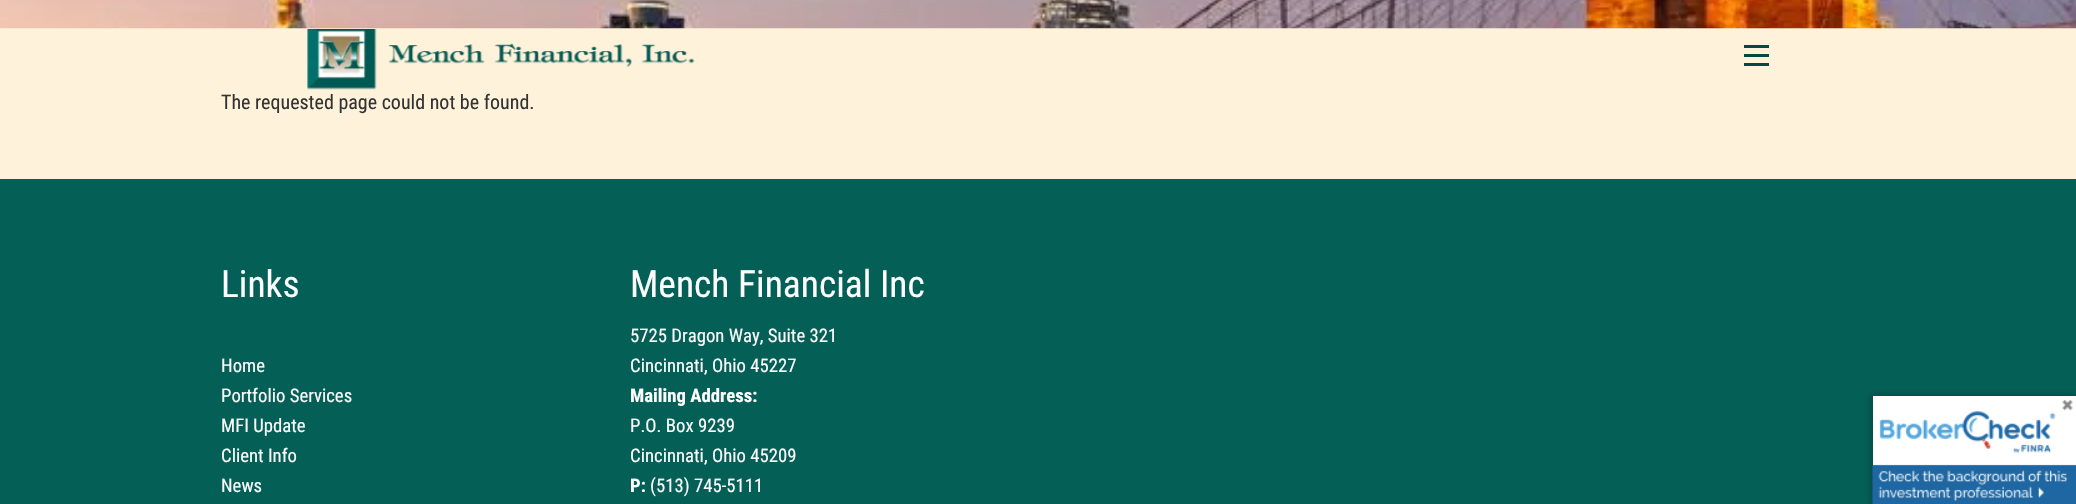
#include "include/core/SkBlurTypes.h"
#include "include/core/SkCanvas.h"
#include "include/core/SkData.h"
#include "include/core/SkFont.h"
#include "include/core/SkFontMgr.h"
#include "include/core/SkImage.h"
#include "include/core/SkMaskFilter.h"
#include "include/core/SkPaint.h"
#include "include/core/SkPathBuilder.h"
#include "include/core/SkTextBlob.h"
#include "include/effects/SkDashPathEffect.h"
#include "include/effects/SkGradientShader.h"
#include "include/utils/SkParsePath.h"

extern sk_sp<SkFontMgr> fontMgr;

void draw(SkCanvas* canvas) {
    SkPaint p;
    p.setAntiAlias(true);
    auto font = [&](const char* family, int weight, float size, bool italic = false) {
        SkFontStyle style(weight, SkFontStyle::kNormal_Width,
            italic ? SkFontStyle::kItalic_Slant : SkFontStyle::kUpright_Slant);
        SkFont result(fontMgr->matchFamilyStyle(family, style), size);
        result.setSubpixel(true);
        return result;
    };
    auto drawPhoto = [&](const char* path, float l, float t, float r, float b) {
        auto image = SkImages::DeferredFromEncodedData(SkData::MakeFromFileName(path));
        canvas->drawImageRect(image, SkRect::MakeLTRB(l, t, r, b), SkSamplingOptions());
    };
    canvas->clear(0xFFFEF2DA);
    drawPhoto("media/1.png", 0, 0, 2076, 29);
    drawPhoto("media/2.png", 307, 29, 695, 90);
    {
        const struct { float l, t, r, b; SkColor color; } items[] = {
            {1744, 63, 1769, 66, 0xFF024943},
            {1744, 54, 1769, 57, 0xFF024943},
            {1744, 45, 1769, 48, 0xFF024943},
        };
        for (auto [l, t, r, b, color] : items) {
            p.setColor(color);
            canvas->drawRect(SkRect::MakeLTRB(l, t, r, b), p);
        }
    }
    auto font1 = font("Roboto Condensed", 400, 20);
    p.setColor(0xFF333333);
    canvas->drawString("The requested page could not be found.", 221, 109, font1, p);
    p.setColor(0xFF045F57);
    canvas->drawRect(SkRect::MakeLTRB(0, 179, 2076, 504), p);
    auto font2 = font("Roboto Condensed", 400, 37.5f);
    p.setColor(0xFFFFFFFF);
    canvas->drawString("Links", 221, 297, font2, p);
    auto font3 = font("Roboto Condensed", 400, 18.75f);
    {
        const struct { const char* s; float x, y; } items[] = {
            {"Home", 221, 372},
            {"Portfolio Services", 221, 402},
            {"MFI Update", 221, 432},
            {"Client Info", 221, 462},
            {"News", 221, 492},
        };
        for (auto [s, x, y] : items) {
            canvas->drawString(s, x, y, font3, p);
        }
    }
    canvas->drawString("Mench Financial Inc", 630, 297, font2, p);
    canvas->drawString("5725 Dragon Way, Suite 321", 630, 342, font3, p);
    canvas->drawString("Cincinnati, Ohio 45227", 630, 372, font3, p);
    auto font4 = font("Roboto Condensed", 700, 18.75f);
    canvas->drawString("Mailing Address:", 630, 402, font4, p);
    canvas->drawString("P.O. Box 9239", 630, 432, font3, p);
    canvas->drawString("Cincinnati, Ohio 45209", 630, 462, font3, p);
    canvas->drawString("P:", 630, 492, font4, p);
    canvas->drawString("(513) 745-5111", 650, 492, font3, p);
    canvas->drawRect(SkRect::MakeLTRB(1873, 396, 2076, 466), p);
    canvas->save();
    canvas->clipPath(SkPathBuilder(SkPathFillType::kEvenOdd).moveTo(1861, 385).lineTo(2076, 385).lineTo(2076, 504).lineTo(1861, 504).close().moveTo(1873, 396).lineTo(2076, 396).lineTo(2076, 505).lineTo(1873, 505).close().detach(), true);
    p.setColor(0x40000000);
    p.setMaskFilter(SkMaskFilter::MakeBlur(kNormal_SkBlurStyle, 3));
    canvas->drawRect(SkRect::MakeLTRB(1871, 395, 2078, 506), p);
    p.setMaskFilter(nullptr);
    canvas->restore();
    drawPhoto("media/3.png", 1872, 399, 2076, 504);
}
